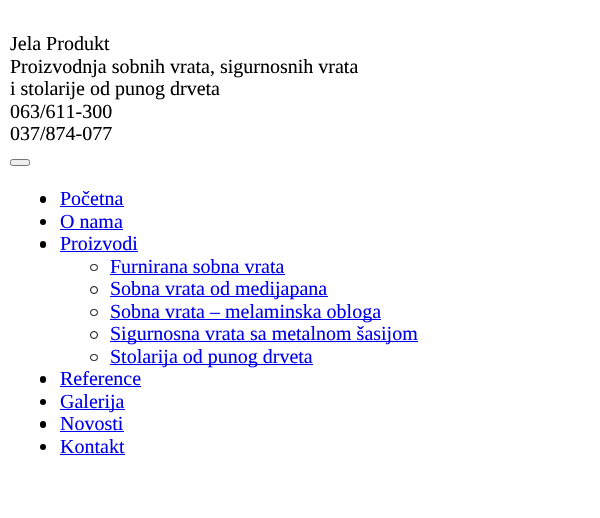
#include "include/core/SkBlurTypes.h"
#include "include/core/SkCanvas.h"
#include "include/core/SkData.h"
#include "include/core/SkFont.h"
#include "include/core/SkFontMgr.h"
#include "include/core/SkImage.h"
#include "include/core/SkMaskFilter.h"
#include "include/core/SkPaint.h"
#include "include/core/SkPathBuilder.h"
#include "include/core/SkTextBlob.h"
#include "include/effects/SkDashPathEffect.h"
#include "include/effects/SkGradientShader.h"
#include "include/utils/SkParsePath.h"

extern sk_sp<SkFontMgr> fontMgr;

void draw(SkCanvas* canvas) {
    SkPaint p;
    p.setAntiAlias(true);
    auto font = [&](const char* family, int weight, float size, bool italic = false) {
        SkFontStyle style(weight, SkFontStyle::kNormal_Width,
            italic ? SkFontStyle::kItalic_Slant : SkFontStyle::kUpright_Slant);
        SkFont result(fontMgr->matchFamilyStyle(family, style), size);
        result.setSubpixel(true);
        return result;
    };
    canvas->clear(0xFFFFFFFF);
    auto font1 = font("Liberation Serif", 400, 20);
    p.setColor(0xFF000000);
    {
        const struct { const char* s; float x, y; } items[] = {
            {"Jela Produkt", 10, 50},
            {"Proizvodnja sobnih vrata, sigurnosnih vrata", 10, 73},
            {"i stolarije od punog drveta", 10, 95},
            {"063/611-300", 10, 118},
            {"037/874-077", 10, 140},
        };
        for (auto [s, x, y] : items) {
            canvas->drawString(s, x, y, font1, p);
        }
    }
    p.setColor(0xFFEFEFEF);
    canvas->drawRoundRect(SkRect::MakeLTRB(10.5f, 159.5f, 29.5f, 165.5f), 2, 2, p);
    p.setStyle(SkPaint::kStroke_Style);
    p.setStrokeWidth(1);
    p.setColor(0xFF767676);
    canvas->drawRoundRect(SkRect::MakeLTRB(10.5f, 159.5f, 29.5f, 165.5f), 2, 2, p);
    p.setStyle(SkPaint::kFill_Style);
    p.setColor(0xFF000000);
    canvas->drawRoundRect(SkRect::MakeLTRB(40, 196, 46, 203), 3, 3, p);
    p.setColor(0xFF0000EE);
    canvas->drawString("Početna", 60, 205, font1, p);
    canvas->drawRect(SkRect::MakeLTRB(60, 206, 124, 207), p);
    p.setColor(0xFF000000);
    canvas->drawCircle(43, 222, 3, p);
    p.setColor(0xFF0000EE);
    canvas->drawString("O nama", 60, 228, font1, p);
    canvas->drawRect(SkRect::MakeLTRB(60, 229, 123, 230), p);
    p.setColor(0xFF000000);
    canvas->drawRoundRect(SkRect::MakeLTRB(40, 241, 46, 248), 3, 3, p);
    p.setColor(0xFF0000EE);
    canvas->drawString("Proizvodi", 60, 250, font1, p);
    canvas->drawRect(SkRect::MakeLTRB(60, 251, 138, 252), p);
    p.setStyle(SkPaint::kStroke_Style);
    p.setColor(0xFF000000);
    canvas->drawRoundRect(SkRect::MakeLTRB(90.5f, 264.5f, 97.5f, 270.5f), 3, 3, p);
    p.setStyle(SkPaint::kFill_Style);
    p.setColor(0xFF0000EE);
    canvas->drawString("Furnirana sobna vrata", 110, 273, font1, p);
    canvas->drawRect(SkRect::MakeLTRB(110, 274, 285, 275), p);
    p.setStyle(SkPaint::kStroke_Style);
    p.setColor(0xFF000000);
    canvas->drawCircle(94, 290, 3.5f, p);
    p.setStyle(SkPaint::kFill_Style);
    p.setColor(0xFF0000EE);
    canvas->drawRect(SkRect::MakeLTRB(110, 296, 328, 297), p);
    canvas->drawString("Sobna vrata od medijapana", 110, 295, font1, p);
    p.setStyle(SkPaint::kStroke_Style);
    p.setColor(0xFF000000);
    canvas->drawRoundRect(SkRect::MakeLTRB(90.5f, 309.5f, 97.5f, 315.5f), 3, 3, p);
    p.setStyle(SkPaint::kFill_Style);
    p.setColor(0xFF0000EE);
    canvas->drawRect(SkRect::MakeLTRB(110, 319, 381, 320), p);
    canvas->drawString("Sobna vrata – melaminska obloga", 110, 318, font1, p);
    p.setStyle(SkPaint::kStroke_Style);
    p.setColor(0xFF000000);
    canvas->drawCircle(94, 335, 3.5f, p);
    p.setStyle(SkPaint::kFill_Style);
    p.setColor(0xFF0000EE);
    canvas->drawRect(SkRect::MakeLTRB(110, 341, 418, 342), p);
    canvas->drawString("Sigurnosna vrata sa metalnom šasijom", 110, 340, font1, p);
    p.setStyle(SkPaint::kStroke_Style);
    p.setColor(0xFF000000);
    canvas->drawRoundRect(SkRect::MakeLTRB(90.5f, 354.5f, 97.5f, 360.5f), 3, 3, p);
    p.setStyle(SkPaint::kFill_Style);
    p.setColor(0xFF0000EE);
    canvas->drawRect(SkRect::MakeLTRB(110, 364, 313, 365), p);
    canvas->drawString("Stolarija od punog drveta", 110, 363, font1, p);
    p.setColor(0xFF000000);
    canvas->drawRoundRect(SkRect::MakeLTRB(40, 376, 46, 383), 3, 3, p);
    p.setColor(0xFF0000EE);
    canvas->drawString("Reference", 60, 385, font1, p);
    canvas->drawRect(SkRect::MakeLTRB(60, 386, 141, 387), p);
    p.setColor(0xFF000000);
    canvas->drawCircle(43, 402, 3, p);
    p.setColor(0xFF0000EE);
    canvas->drawRect(SkRect::MakeLTRB(60, 409, 125, 410), p);
    canvas->drawString("Galerija", 60, 408, font1, p);
    p.setColor(0xFF000000);
    canvas->drawRoundRect(SkRect::MakeLTRB(40, 421, 46, 428), 3, 3, p);
    p.setColor(0xFF0000EE);
    canvas->drawString("Novosti", 60, 430, font1, p);
    canvas->drawRect(SkRect::MakeLTRB(60, 431, 124, 432), p);
    p.setColor(0xFF000000);
    canvas->drawCircle(43, 447, 3, p);
    p.setColor(0xFF0000EE);
    canvas->drawString("Kontakt", 60, 453, font1, p);
    canvas->drawRect(SkRect::MakeLTRB(60, 454, 125, 455), p);
}
